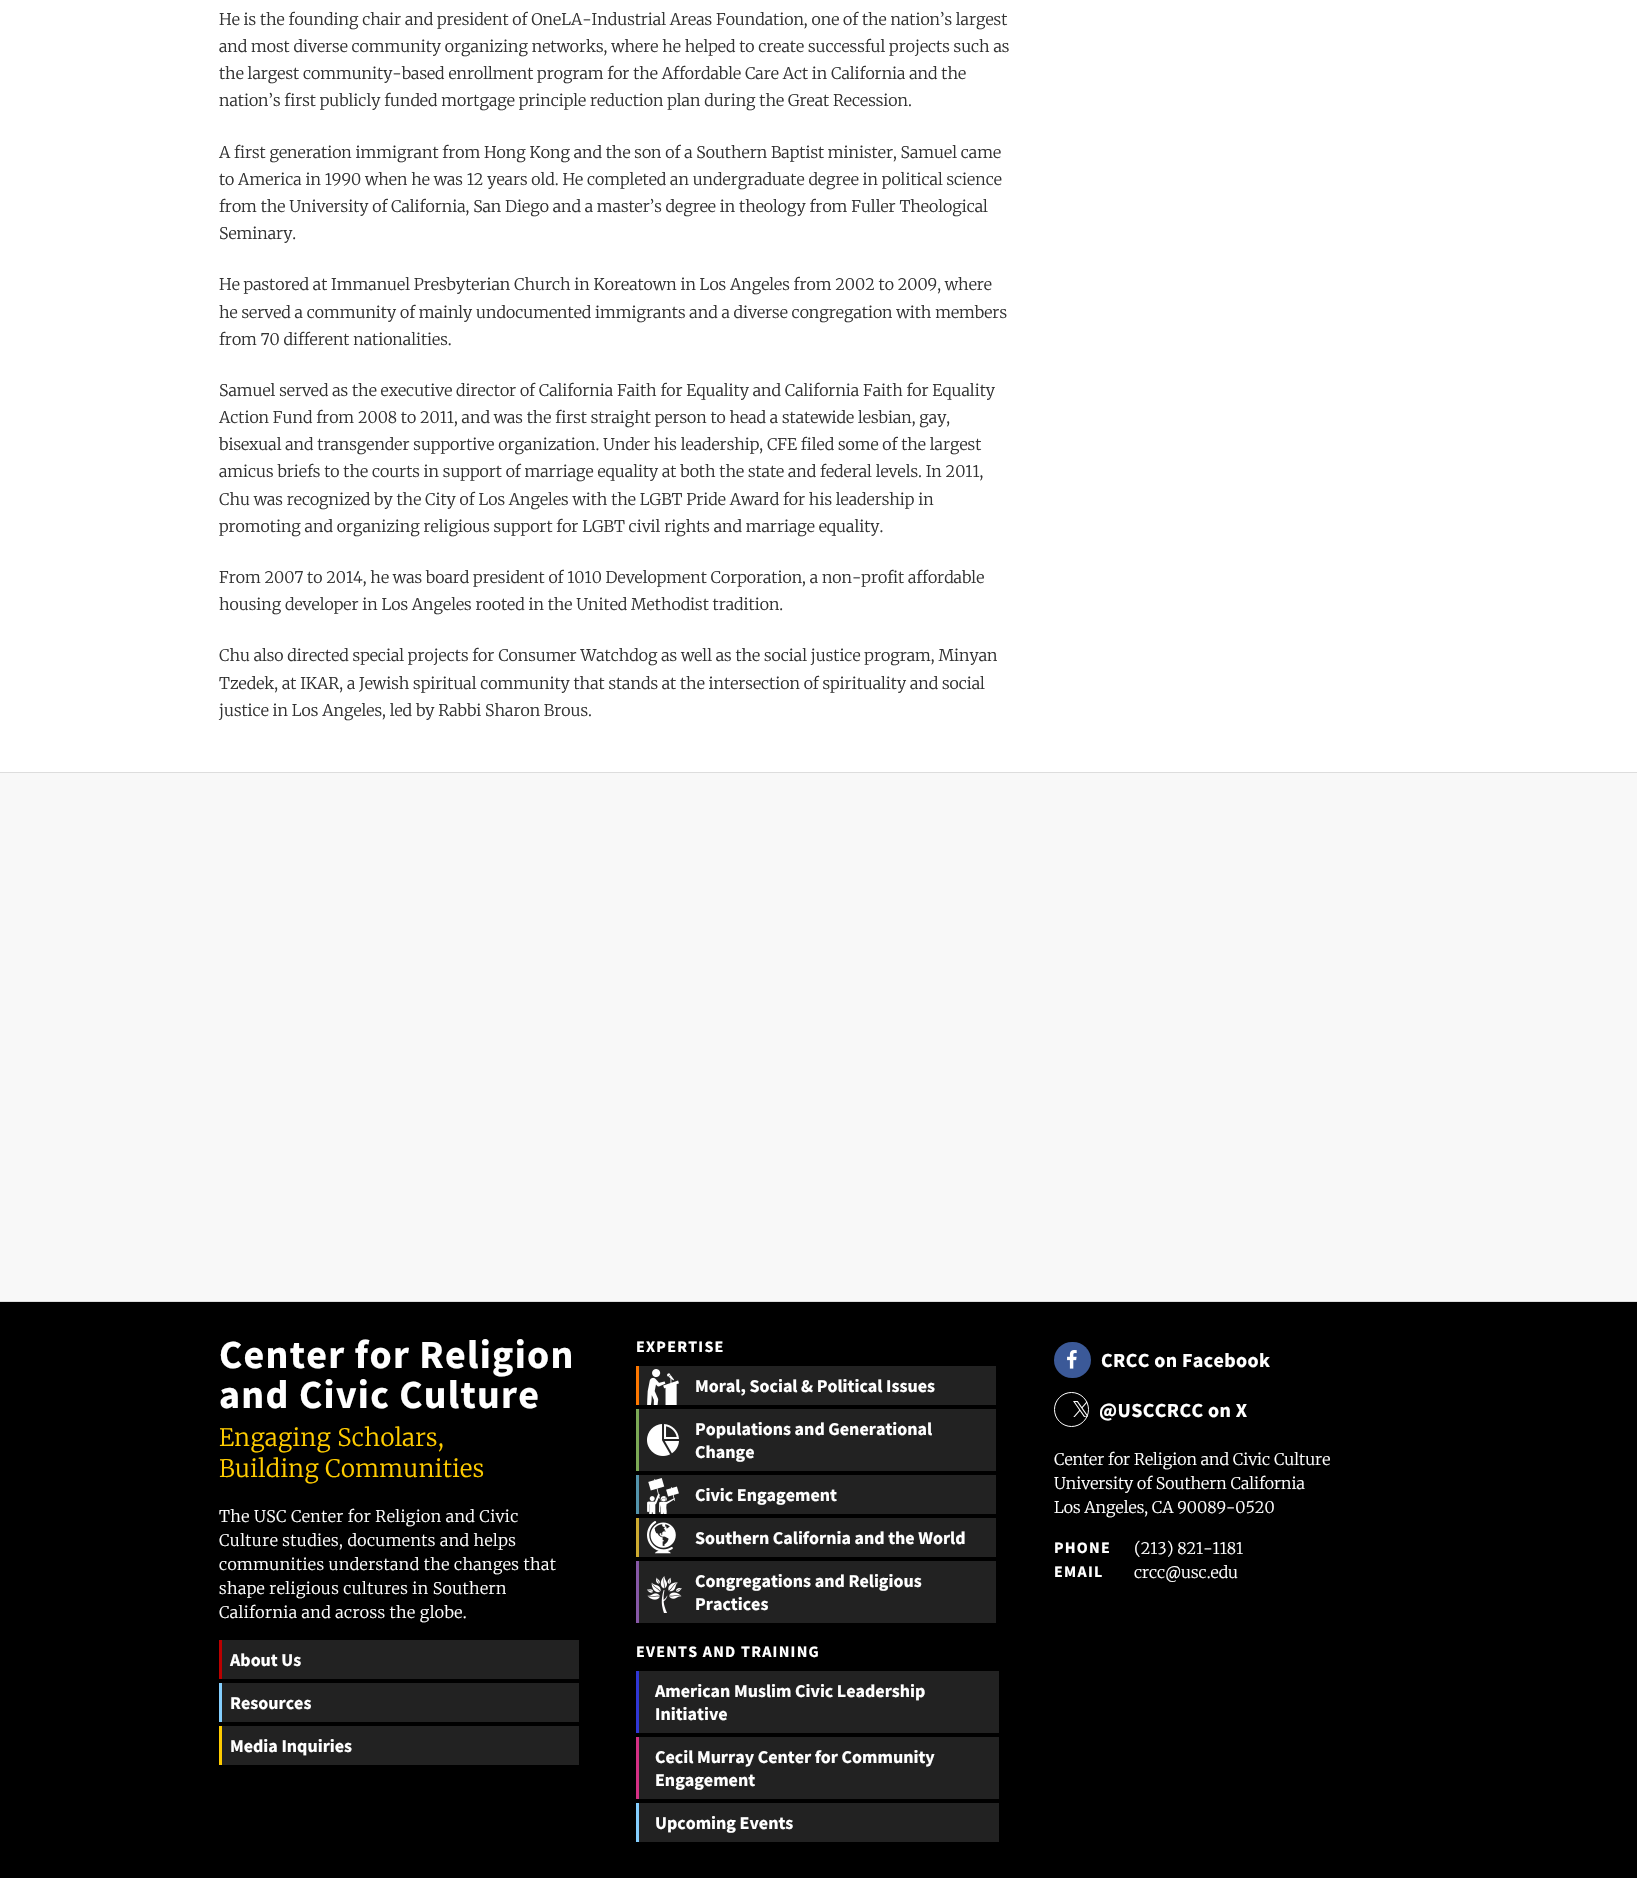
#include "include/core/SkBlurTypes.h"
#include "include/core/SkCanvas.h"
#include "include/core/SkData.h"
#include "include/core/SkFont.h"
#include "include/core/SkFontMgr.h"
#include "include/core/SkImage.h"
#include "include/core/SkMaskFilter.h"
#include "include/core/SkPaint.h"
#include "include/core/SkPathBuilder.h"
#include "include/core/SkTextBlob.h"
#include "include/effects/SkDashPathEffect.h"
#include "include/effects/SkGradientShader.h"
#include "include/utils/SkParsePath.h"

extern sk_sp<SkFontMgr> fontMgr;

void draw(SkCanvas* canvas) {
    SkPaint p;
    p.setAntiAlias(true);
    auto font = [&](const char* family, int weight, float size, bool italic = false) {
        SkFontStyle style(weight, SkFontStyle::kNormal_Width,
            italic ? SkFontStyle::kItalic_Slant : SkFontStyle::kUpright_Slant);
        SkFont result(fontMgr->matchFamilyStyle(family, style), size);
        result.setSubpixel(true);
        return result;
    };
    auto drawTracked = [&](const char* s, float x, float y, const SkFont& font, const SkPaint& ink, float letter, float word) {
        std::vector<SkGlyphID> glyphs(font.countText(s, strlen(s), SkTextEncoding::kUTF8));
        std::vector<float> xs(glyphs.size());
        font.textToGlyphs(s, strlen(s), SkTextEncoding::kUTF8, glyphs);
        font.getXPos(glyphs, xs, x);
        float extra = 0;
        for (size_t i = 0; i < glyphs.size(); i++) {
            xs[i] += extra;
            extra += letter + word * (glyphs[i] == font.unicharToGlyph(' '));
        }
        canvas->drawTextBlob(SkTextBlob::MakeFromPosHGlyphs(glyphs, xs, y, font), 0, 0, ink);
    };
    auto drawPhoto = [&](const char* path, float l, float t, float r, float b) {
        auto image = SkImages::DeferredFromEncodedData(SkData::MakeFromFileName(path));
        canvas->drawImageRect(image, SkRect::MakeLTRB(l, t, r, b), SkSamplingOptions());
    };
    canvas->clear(0xFFFFFFFF);
    auto font1 = font("Merriweather", 300, 16);
    p.setColor(0xFF333333);
    {
        const struct { const char* s; float x, y; } items[] = {
            {"He is the founding chair and president of OneLA-Industrial Areas Foundation, one of the nation’s largest", 219, 25},
            {"and most diverse community organizing networks, where he helped to create successful projects such as", 219, 52},
            {"the largest community-based enrollment program for the Affordable Care Act in California and the", 219, 79},
            {"nation’s first publicly funded mortgage principle reduction plan during the Great Recession.", 219, 106},
            {"A first generation immigrant from Hong Kong and the son of a Southern Baptist minister, Samuel came", 219, 158},
            {"to America in 1990 when he was 12 years old. He completed an undergraduate degree in political science", 219, 185},
            {"from the University of California, San Diego and a master’s degree in theology from Fuller Theological", 219, 212},
            {"Seminary.", 219, 239},
            {"He pastored at Immanuel Presbyterian Church in Koreatown in Los Angeles from 2002 to 2009, where", 219, 290},
            {"he served a community of mainly undocumented immigrants and a diverse congregation with members", 219, 318},
            {"from 70 different nationalities.", 219, 345},
            {"Samuel served as the executive director of California Faith for Equality and California Faith for Equality", 219, 396},
            {"Action Fund from 2008 to 2011, and was the first straight person to head a statewide lesbian, gay,", 219, 423},
            {"bisexual and transgender supportive organization. Under his leadership, CFE filed some of the largest", 219, 450},
            {"amicus briefs to the courts in support of marriage equality at both the state and federal levels. In 2011,", 219, 477},
            {"Chu was recognized by the City of Los Angeles with the LGBT Pride Award for his leadership in", 219, 505},
            {"promoting and organizing religious support for LGBT civil rights and marriage equality.", 219, 532},
            {"From 2007 to 2014, he was board president of 1010 Development Corporation, a non-profit affordable", 219, 583},
            {"housing developer in Los Angeles rooted in the United Methodist tradition.", 219, 610},
            {"Chu also directed special projects for Consumer Watchdog as well as the social justice program, Minyan", 219, 661},
            {"Tzedek, at IKAR, a Jewish spiritual community that stands at the intersection of spirituality and social", 219, 689},
            {"justice in Los Angeles, led by Rabbi Sharon Brous.", 219, 716},
        };
        for (auto [s, x, y] : items) {
            canvas->drawString(s, x, y, font1, p);
        }
    }
    {
        const struct { float l, t, r, b; SkColor color; } items[] = {
            {0, 773, 1637, 1301, 0xFFF8F8F8},
            {0, 772, 1637, 773, 0xFFDDDDDD},
            {0, 1301, 1637, 1302, 0xFFDDDDDD},
            {0, 1302, 1637, 1878, 0xFF000000},
        };
        for (auto [l, t, r, b, color] : items) {
            p.setColor(color);
            canvas->drawRect(SkRect::MakeLTRB(l, t, r, b), p);
        }
    }
    auto font2 = font("Source Sans Pro", 700, 40);
    p.setColor(0xFFFFFFFF);
    drawTracked("Center for Religion", 219, 1368, font2, p, 1.25f, 0);
    drawTracked("and Civic Culture", 219, 1408, font2, p, 1.25f, 0);
    auto font3 = font("Merriweather", 300, 24);
    p.setColor(0xFFFFCC00);
    drawTracked("Engaging Scholars,", 219, 1446, font3, p, 0.4f, 0);
    drawTracked("Building Communities", 219, 1477, font3, p, 0.4f, 0);
    p.setColor(0xFFFFFFFF);
    {
        const struct { const char* s; float x, y; } items[] = {
            {"The USC Center for Religion and Civic", 219, 1522},
            {"Culture studies, documents and helps", 219, 1546},
            {"communities understand the changes that", 219, 1570},
            {"shape religious cultures in Southern", 219, 1594},
            {"California and across the globe.", 219, 1618},
        };
        for (auto [s, x, y] : items) {
            drawTracked(s, x, y, font1, p, 0.4f, 0);
        }
    }
    p.setColor(0xFF222222);
    canvas->drawRect(SkRect::MakeLTRB(222, 1640, 579, 1679), p);
    p.setColor(0xFFBB0000);
    canvas->drawRect(SkRect::MakeLTRB(219, 1640, 222, 1679), p);
    auto font4 = font("Source Sans Pro", 700, 18);
    p.setColor(0xFFFFFFFF);
    canvas->drawString("About Us", 230, 1666, font4, p);
    p.setColor(0xFF222222);
    canvas->drawRect(SkRect::MakeLTRB(222, 1683, 579, 1722), p);
    p.setColor(0xFF84CFFF);
    canvas->drawRect(SkRect::MakeLTRB(219, 1683, 222, 1722), p);
    p.setColor(0xFFFFFFFF);
    canvas->drawString("Resources", 230, 1709, font4, p);
    p.setColor(0xFF222222);
    canvas->drawRect(SkRect::MakeLTRB(222, 1726, 579, 1765), p);
    p.setColor(0xFFFFCC00);
    canvas->drawRect(SkRect::MakeLTRB(219, 1726, 222, 1765), p);
    p.setColor(0xFFFFFFFF);
    canvas->drawString("Media Inquiries", 230, 1752, font4, p);
    auto font5 = font("Source Sans Pro", 700, 16);
    drawTracked("EXPERTISE", 636, 1352, font5, p, 1.25f, 0);
    p.setColor(0xFF222222);
    canvas->drawRect(SkRect::MakeLTRB(639, 1366, 996, 1405), p);
    p.setColor(0xFFFF7800);
    canvas->drawRect(SkRect::MakeLTRB(636, 1366, 639, 1405), p);
    drawPhoto("media/1.png", 647, 1369, 679, 1405);
    p.setColor(0xFFFFFFFF);
    canvas->drawString("Moral, Social & Political Issues", 695, 1392, font4, p);
    p.setColor(0xFF222222);
    canvas->drawRect(SkRect::MakeLTRB(639, 1409, 996, 1471), p);
    p.setColor(0xFF7BA955);
    canvas->drawRect(SkRect::MakeLTRB(636, 1409, 639, 1471), p);
    drawPhoto("media/2.png", 647, 1424, 679, 1456);
    p.setColor(0xFFFFFFFF);
    canvas->drawString("Populations and Generational", 695, 1435, font4, p);
    canvas->drawString("Change", 695, 1458, font4, p);
    p.setColor(0xFF222222);
    canvas->drawRect(SkRect::MakeLTRB(639, 1475, 996, 1514), p);
    p.setColor(0xFF5394AC);
    canvas->drawRect(SkRect::MakeLTRB(636, 1475, 639, 1514), p);
    drawPhoto("media/3.png", 647, 1478, 679, 1514);
    p.setColor(0xFFFFFFFF);
    canvas->drawString("Civic Engagement", 695, 1501, font4, p);
    p.setColor(0xFF222222);
    canvas->drawRect(SkRect::MakeLTRB(639, 1518, 996, 1557), p);
    p.setColor(0xFFCEAB30);
    canvas->drawRect(SkRect::MakeLTRB(636, 1518, 639, 1557), p);
    drawPhoto("media/4.png", 647, 1521, 676, 1554);
    p.setColor(0xFFFFFFFF);
    canvas->drawString("Southern California and the World", 695, 1544, font4, p);
    p.setColor(0xFF222222);
    canvas->drawRect(SkRect::MakeLTRB(639, 1561, 996, 1623), p);
    p.setColor(0xFF8758A7);
    canvas->drawRect(SkRect::MakeLTRB(636, 1561, 639, 1623), p);
    drawPhoto("media/5.png", 647, 1576, 682, 1613);
    p.setColor(0xFFFFFFFF);
    canvas->drawString("Congregations and Religious", 695, 1587, font4, p);
    canvas->drawString("Practices", 695, 1610, font4, p);
    drawTracked("EVENTS AND TRAINING", 636, 1657, font5, p, 1.25f, 0);
    p.setColor(0xFF222222);
    canvas->drawRect(SkRect::MakeLTRB(639, 1671, 999, 1733), p);
    p.setColor(0xFF3037D5);
    canvas->drawRect(SkRect::MakeLTRB(636, 1671, 639, 1733), p);
    p.setColor(0xFFFFFFFF);
    canvas->drawString("American Muslim Civic Leadership", 655, 1697, font4, p);
    canvas->drawString("Initiative", 655, 1720, font4, p);
    p.setColor(0xFF222222);
    canvas->drawRect(SkRect::MakeLTRB(639, 1737, 999, 1799), p);
    p.setColor(0xFFD53084);
    canvas->drawRect(SkRect::MakeLTRB(636, 1737, 639, 1799), p);
    p.setColor(0xFFFFFFFF);
    canvas->drawString("Cecil Murray Center for Community", 655, 1763, font4, p);
    canvas->drawString("Engagement", 655, 1786, font4, p);
    p.setColor(0xFF222222);
    canvas->drawRect(SkRect::MakeLTRB(639, 1803, 999, 1842), p);
    p.setColor(0xFF84CFFF);
    canvas->drawRect(SkRect::MakeLTRB(636, 1803, 639, 1842), p);
    p.setColor(0xFFFFFFFF);
    canvas->drawString("Upcoming Events", 655, 1829, font4, p);
    p.setColor(0xFF3B5998);
    canvas->drawRoundRect(SkRect::MakeLTRB(1054, 1342, 1091, 1378), 18, 18, p);
    drawPhoto("media/6.png", 1067, 1350, 1077, 1369);
    auto font6 = font("Source Sans Pro", 700, 20);
    p.setColor(0xFFFFFFFF);
    drawTracked("CRCC on Facebook", 1101, 1367, font6, p, 0.4f, 0);
    drawPhoto("media/7.png", 1073, 1401, 1088, 1417);
    p.setStyle(SkPaint::kStroke_Style);
    p.setStrokeWidth(1);
    canvas->drawCircle(1071.5f, 1409.5f, 17, p);
    p.setStyle(SkPaint::kFill_Style);
    drawTracked("@USCCRCC on X", 1099, 1417, font6, p, 0.4f, 0);
    {
        const struct { const char* s; float x, y; } items[] = {
            {"Center for Religion and Civic Culture", 1054, 1465},
            {"University of Southern California", 1054, 1489},
            {"Los Angeles, CA 90089-0520", 1054, 1513},
        };
        for (auto [s, x, y] : items) {
            canvas->drawString(s, x, y, font1, p);
        }
    }
    drawTracked("PHONE", 1054, 1553, font5, p, 1.25f, 0);
    canvas->drawString("(213) 821-1181", 1134, 1554, font1, p);
    drawTracked("EMAIL", 1054, 1577, font5, p, 1.25f, 0);
    canvas->drawString("crcc@usc.edu", 1134, 1578, font1, p);
}
